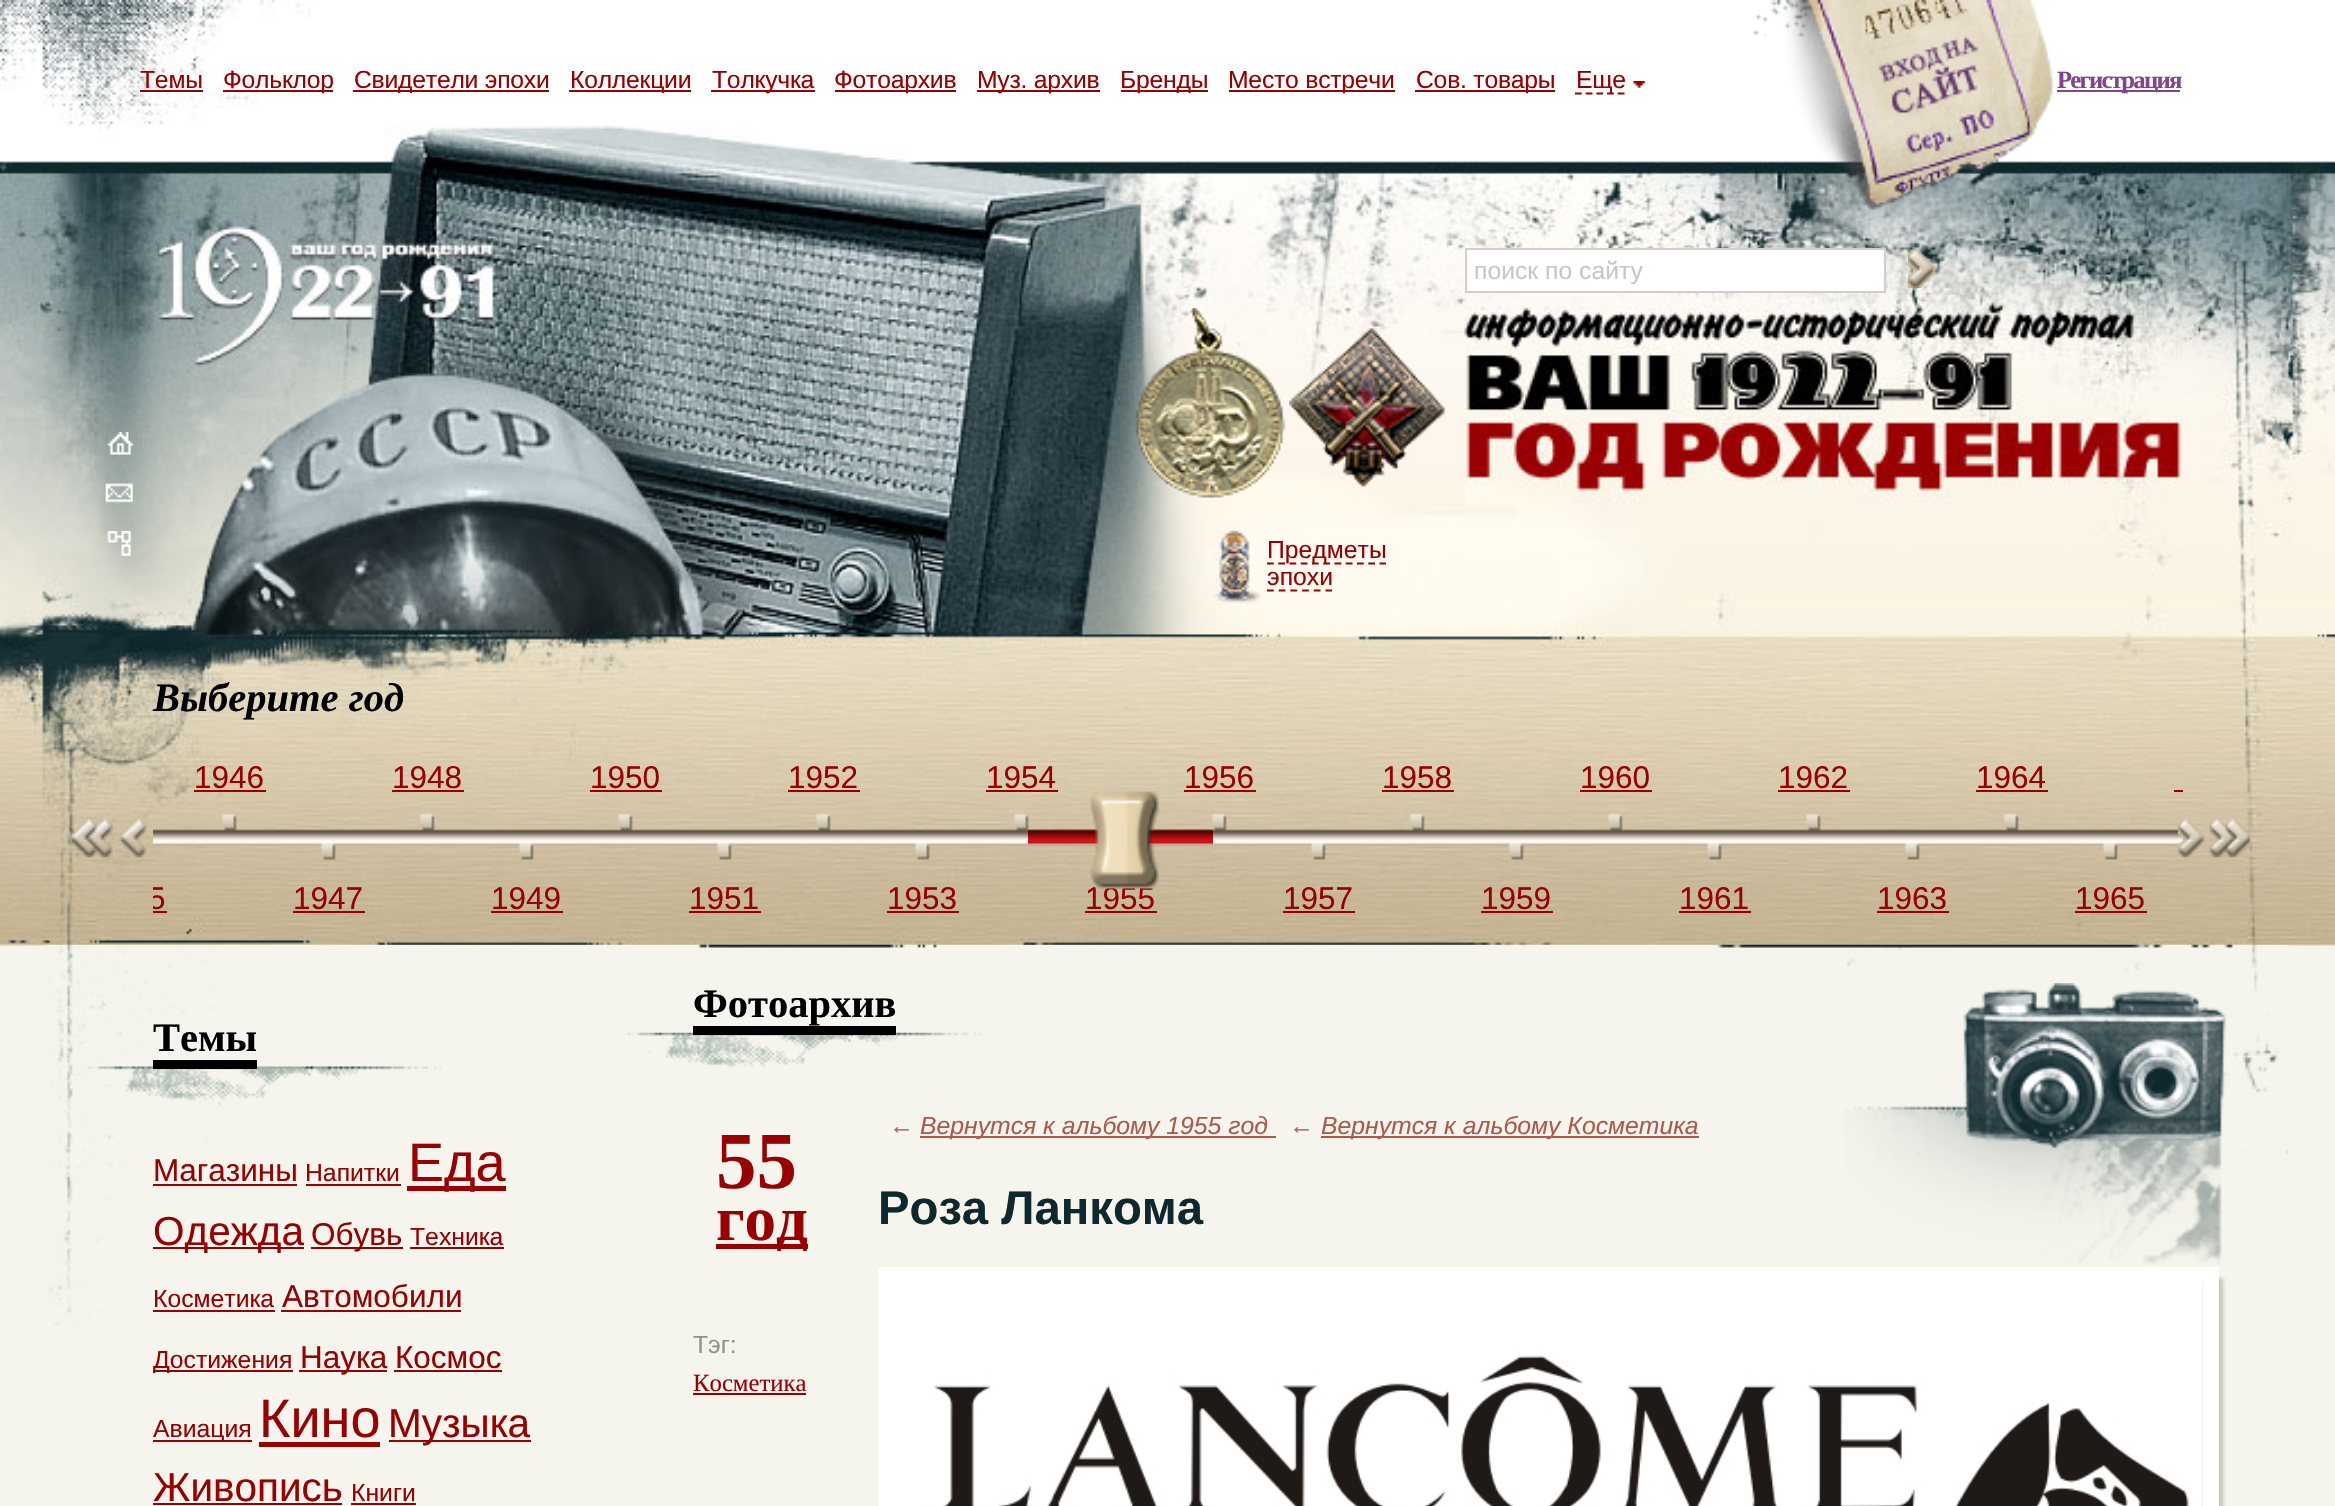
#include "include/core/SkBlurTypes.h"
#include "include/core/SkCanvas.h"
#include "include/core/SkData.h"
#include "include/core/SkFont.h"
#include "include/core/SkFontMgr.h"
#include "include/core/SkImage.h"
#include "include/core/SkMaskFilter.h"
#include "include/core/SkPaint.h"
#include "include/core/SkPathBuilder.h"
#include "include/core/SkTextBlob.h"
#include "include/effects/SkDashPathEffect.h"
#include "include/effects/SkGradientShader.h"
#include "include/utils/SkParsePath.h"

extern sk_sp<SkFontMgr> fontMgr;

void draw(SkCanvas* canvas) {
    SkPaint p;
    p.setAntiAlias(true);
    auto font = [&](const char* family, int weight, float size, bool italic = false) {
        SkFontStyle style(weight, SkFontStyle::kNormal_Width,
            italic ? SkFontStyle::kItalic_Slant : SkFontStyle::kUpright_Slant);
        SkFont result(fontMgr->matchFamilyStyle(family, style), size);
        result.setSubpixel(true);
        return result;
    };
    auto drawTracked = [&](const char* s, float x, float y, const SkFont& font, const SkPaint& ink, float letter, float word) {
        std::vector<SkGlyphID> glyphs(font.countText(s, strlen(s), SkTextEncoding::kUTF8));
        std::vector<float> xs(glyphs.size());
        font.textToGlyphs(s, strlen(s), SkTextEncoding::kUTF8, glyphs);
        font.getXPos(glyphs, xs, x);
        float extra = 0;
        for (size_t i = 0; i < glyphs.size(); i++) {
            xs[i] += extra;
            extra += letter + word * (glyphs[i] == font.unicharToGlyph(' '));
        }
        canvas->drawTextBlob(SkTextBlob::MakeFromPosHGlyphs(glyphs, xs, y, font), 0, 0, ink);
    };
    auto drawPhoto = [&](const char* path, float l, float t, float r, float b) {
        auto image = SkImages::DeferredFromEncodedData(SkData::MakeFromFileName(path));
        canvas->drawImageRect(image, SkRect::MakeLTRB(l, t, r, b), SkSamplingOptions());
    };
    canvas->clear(0xFFF5F5ED);
    drawPhoto("media/1.png", 0, 0, 2335, 948);
    auto font1 = font("Liberation Sans", 400, 24.75f);
    p.setColor(0xFF990002);
    drawTracked("Темы", 140, 88, font1, p, -0.25f, 0);
    canvas->drawRect(SkRect::MakeLTRB(140, 90, 203, 92), p);
    canvas->drawRect(SkRect::MakeLTRB(223, 90, 333, 92), p);
    drawTracked("Фольклор", 223, 88, font1, p, -0.25f, 0);
    canvas->drawRect(SkRect::MakeLTRB(353, 90, 549, 92), p);
    drawTracked("Свидетели эпохи", 354, 88, font1, p, -0.25f, 0);
    canvas->drawRect(SkRect::MakeLTRB(569, 90, 691, 92), p);
    drawTracked("Коллекции", 570, 88, font1, p, -0.25f, 0);
    canvas->drawRect(SkRect::MakeLTRB(711, 90, 815, 92), p);
    drawTracked("Толкучка", 712, 88, font1, p, -0.25f, 0);
    canvas->drawRect(SkRect::MakeLTRB(835, 90, 956, 92), p);
    drawTracked("Фотоархив", 834, 88, font1, p, -0.25f, 0);
    canvas->drawRect(SkRect::MakeLTRB(977, 90, 1100, 92), p);
    drawTracked("Муз. архив", 977, 88, font1, p, -0.25f, 0);
    canvas->drawRect(SkRect::MakeLTRB(1121, 90, 1208, 92), p);
    drawTracked("Бренды", 1120, 88, font1, p, -0.25f, 0);
    canvas->drawRect(SkRect::MakeLTRB(1229, 90, 1395, 92), p);
    drawTracked("Место встречи", 1228, 88, font1, p, -0.25f, 0);
    canvas->drawRect(SkRect::MakeLTRB(1415, 90, 1555, 92), p);
    drawTracked("Сов. товары", 1416, 88, font1, p, -0.25f, 0);
    p.setStyle(SkPaint::kStroke_Style);
    p.setStrokeWidth(2.2f);
    p.setPathEffect(SkDashPathEffect::Make({{6.75f, 3.94f}}, 0));
    canvas->drawPath(SkPathBuilder().moveTo(1575, 93.5f).lineTo(1624.5f, 93.5f).detach(), p);
    p.setPathEffect(nullptr);
    p.setStyle(SkPaint::kFill_Style);
    drawTracked("Еще", 1576, 88, font1, p, -0.25f, 0);
    drawPhoto("media/2.png", 1633, 81, 1645, 88);
    drawPhoto("media/3.png", 1752, 0, 2055, 212);
    p.setColor(0xFF81458C);
    canvas->drawRect(SkRect::MakeLTRB(2057, 90, 2180, 92), p);
    auto font2 = font("Liberation Serif", 700, 24.75f);
    drawTracked("Регистрация", 2057, 88, font2, p, -1.75f, 0);
    p.setColor(0xFFFFFFFF);
    canvas->drawRect(SkRect::MakeLTRB(1466, 249, 1885, 292), p);
    p.setStyle(SkPaint::kStroke_Style);
    p.setStrokeWidth(2);
    p.setColor(0xFFD4CCC8);
    canvas->drawRect(SkRect::MakeLTRB(1466, 249, 1885, 292), p);
    p.setStyle(SkPaint::kFill_Style);
    p.setColor(0xFFCDC5C0);
    canvas->drawString("поиск по сайту", 1474, 279, font1, p);
    drawPhoto("media/4.png", 1908, 249, 1935, 288);
    drawPhoto("media/5.png", 107, 432, 133, 455);
    drawPhoto("media/6.png", 105, 483, 133, 503);
    drawPhoto("media/7.png", 107, 531, 132, 556);
    drawPhoto("media/8.png", 1135, 308, 1286, 498);
    drawPhoto("media/9.png", 1289, 328, 1446, 487);
    p.setStyle(SkPaint::kStroke_Style);
    p.setStrokeWidth(2.2f);
    p.setColor(0xFF990002);
    p.setPathEffect(SkDashPathEffect::Make({{6.75f, 4.5f}}, 0));
    canvas->drawPath(SkPathBuilder().moveTo(1267, 563.5f).lineTo(1386, 563.5f).detach(), p);
    p.setPathEffect(nullptr);
    p.setStyle(SkPaint::kFill_Style);
    canvas->drawString("Предметы", 1267, 558, font1, p);
    canvas->drawString("эпохи", 1267, 585, font1, p);
    p.setStyle(SkPaint::kStroke_Style);
    p.setPathEffect(SkDashPathEffect::Make({{6.75f, 4.95f}}, 0));
    canvas->drawPath(SkPathBuilder().moveTo(1267, 590.5f).lineTo(1332, 590.5f).detach(), p);
    p.setPathEffect(nullptr);
    auto font3 = font("Liberation Serif", 700, 40.5f, true);
    p.setStyle(SkPaint::kFill_Style);
    p.setColor(0xFF000000);
    canvas->drawString("Выберите год", 153, 711, font3, p);
    drawPhoto("media/10.png", 72, 819, 113, 858);
    drawPhoto("media/11.png", 153, 758, 2183, 860);
    auto font4 = font("Liberation Sans", 400, 31.5f);
    p.setColor(0xFF990002);
    canvas->drawString("1946", 194, 788, font4, p);
    canvas->drawRect(SkRect::MakeLTRB(194, 790, 266, 792), p);
    canvas->drawString("1948", 392, 788, font4, p);
    canvas->drawRect(SkRect::MakeLTRB(392, 790, 464, 792), p);
    canvas->drawString("1950", 590, 788, font4, p);
    canvas->drawRect(SkRect::MakeLTRB(590, 790, 662, 792), p);
    canvas->drawString("1952", 788, 788, font4, p);
    canvas->drawRect(SkRect::MakeLTRB(788, 790, 860, 792), p);
    canvas->drawString("1954", 986, 788, font4, p);
    canvas->drawRect(SkRect::MakeLTRB(986, 790, 1058, 792), p);
    canvas->drawString("1956", 1184, 788, font4, p);
    canvas->drawRect(SkRect::MakeLTRB(1184, 790, 1256, 792), p);
    canvas->drawString("1958", 1382, 788, font4, p);
    canvas->drawRect(SkRect::MakeLTRB(1382, 790, 1454, 792), p);
    canvas->drawString("1960", 1580, 788, font4, p);
    canvas->drawRect(SkRect::MakeLTRB(1580, 790, 1652, 792), p);
    canvas->drawString("1962", 1778, 788, font4, p);
    canvas->drawRect(SkRect::MakeLTRB(1778, 790, 1850, 792), p);
    canvas->drawString("1964", 1976, 788, font4, p);
    canvas->drawRect(SkRect::MakeLTRB(1976, 790, 2048, 792), p);
    canvas->drawString("1955", 1085, 909, font4, p);
    drawPhoto("media/12.png", 1028, 791, 1213, 890);
    canvas->drawRect(SkRect::MakeLTRB(2174, 790, 2183, 792), p);
    canvas->save();
    canvas->clipRect(SkRect::MakeLTRB(153, 758, 2183, 918));
    canvas->drawString("5", 148, 909, font4, p);
    canvas->restore();
    canvas->drawRect(SkRect::MakeLTRB(153, 911, 167, 913), p);
    canvas->drawString("1947", 293, 909, font4, p);
    canvas->drawRect(SkRect::MakeLTRB(293, 911, 365, 913), p);
    canvas->drawString("1949", 491, 909, font4, p);
    canvas->drawRect(SkRect::MakeLTRB(491, 911, 563, 913), p);
    canvas->drawString("1951", 689, 909, font4, p);
    canvas->drawRect(SkRect::MakeLTRB(689, 911, 761, 913), p);
    canvas->drawString("1953", 887, 909, font4, p);
    canvas->drawRect(SkRect::MakeLTRB(887, 911, 959, 913), p);
    canvas->drawRect(SkRect::MakeLTRB(1085, 911, 1157, 913), p);
    canvas->drawString("1957", 1283, 909, font4, p);
    canvas->drawRect(SkRect::MakeLTRB(1283, 911, 1355, 913), p);
    canvas->drawString("1959", 1481, 909, font4, p);
    canvas->drawRect(SkRect::MakeLTRB(1481, 911, 1553, 913), p);
    canvas->drawString("1961", 1679, 909, font4, p);
    canvas->drawRect(SkRect::MakeLTRB(1679, 911, 1751, 913), p);
    canvas->drawString("1963", 1877, 909, font4, p);
    canvas->drawRect(SkRect::MakeLTRB(1877, 911, 1949, 913), p);
    canvas->drawString("1965", 2075, 909, font4, p);
    canvas->drawRect(SkRect::MakeLTRB(2075, 911, 2147, 913), p);
    drawPhoto("media/13.png", 119, 819, 147, 858);
    drawPhoto("media/14.png", 2178, 819, 2205, 858);
    drawPhoto("media/15.png", 2209, 819, 2250, 858);
    drawPhoto("media/16.png", 47, 945, 2289, 1325);
    drawPhoto("media/17.png", 87, 1066, 441, 1101);
    auto font5 = font("Liberation Serif", 700, 40.5f);
    p.setColor(0xFF000000);
    canvas->drawString("Темы", 153, 1051, font5, p);
    canvas->drawRect(SkRect::MakeLTRB(153, 1060, 257, 1069), p);
    p.setColor(0xFF990002);
    canvas->drawString("Магазины", 153, 1181, font4, p);
    canvas->drawRect(SkRect::MakeLTRB(153, 1184, 297, 1186), p);
    canvas->drawString("Напитки", 305, 1181, font1, p);
    canvas->drawRect(SkRect::MakeLTRB(306, 1184, 401, 1186), p);
    canvas->drawRect(SkRect::MakeLTRB(407, 1186, 506, 1191), p);
    auto font6 = font("Liberation Sans", 400, 54);
    canvas->drawString("Еда", 408, 1181, font6, p);
    canvas->drawRect(SkRect::MakeLTRB(153, 1247, 304, 1249), p);
    auto font7 = font("Liberation Sans", 400, 40.5f);
    canvas->drawString("Одежда", 153, 1245, font7, p);
    canvas->drawRect(SkRect::MakeLTRB(311, 1247, 403, 1249), p);
    canvas->drawString("Обувь", 311, 1245, font4, p);
    canvas->drawString("Техника", 410, 1245, font1, p);
    canvas->drawRect(SkRect::MakeLTRB(410, 1247, 504, 1249), p);
    canvas->drawString("Косметика", 153, 1307, font1, p);
    canvas->drawRect(SkRect::MakeLTRB(153, 1310, 275, 1312), p);
    canvas->drawRect(SkRect::MakeLTRB(281, 1310, 461, 1312), p);
    canvas->drawString("Автомобили", 282, 1307, font4, p);
    canvas->drawRect(SkRect::MakeLTRB(153, 1370, 293, 1372), p);
    canvas->drawString("Достижения", 153, 1368, font1, p);
    canvas->drawRect(SkRect::MakeLTRB(299, 1370, 387, 1372), p);
    canvas->drawString("Наука", 300, 1368, font4, p);
    canvas->drawRect(SkRect::MakeLTRB(394, 1370, 502, 1372), p);
    canvas->drawString("Космос", 395, 1368, font4, p);
    canvas->drawRect(SkRect::MakeLTRB(153, 1440, 252, 1442), p);
    canvas->drawString("Авиация", 153, 1437, font1, p);
    canvas->drawRect(SkRect::MakeLTRB(259, 1442, 380, 1447), p);
    canvas->drawString("Кино", 259, 1437, font6, p);
    canvas->drawRect(SkRect::MakeLTRB(389, 1440, 531, 1442), p);
    canvas->drawString("Музыка", 388, 1437, font7, p);
    canvas->drawString("Живопись", 153, 1501, font7, p);
    canvas->drawRect(SkRect::MakeLTRB(153, 1503, 342, 1505), p);
    canvas->drawString("Книги", 351, 1501, font1, p);
    canvas->drawRect(SkRect::MakeLTRB(351, 1503, 416, 1505), p);
    drawPhoto("media/18.png", 1844, 983, 2226, 1265);
    drawPhoto("media/19.png", 627, 1032, 981, 1067);
    p.setColor(0xFF000000);
    canvas->drawString("Фотоархив", 693, 1017, font5, p);
    canvas->drawRect(SkRect::MakeLTRB(693, 1026, 896, 1035), p);
    auto font8 = font("Liberation Serif", 700, 81);
    p.setColor(0xFF990002);
    canvas->drawString("55", 716, 1188, font8, p);
    canvas->drawRect(SkRect::MakeLTRB(716, 1244, 808, 1249), p);
    auto font9 = font("Liberation Serif", 700, 63);
    canvas->drawString("год", 716, 1240, font9, p);
    p.setColor(0xFF929292);
    canvas->drawString("Тэг:", 693, 1353, font1, p);
    auto font10 = font("Liberation Serif", 400, 24.75f);
    p.setColor(0xFF990002);
    canvas->drawString("Косметика", 693, 1391, font10, p);
    canvas->drawRect(SkRect::MakeLTRB(693, 1393, 806, 1395), p);
    p.setColor(0xFFAE5A4B);
    canvas->drawString("←", 889, 1134, font1, p);
    canvas->drawRect(SkRect::MakeLTRB(920, 1136, 1276, 1138), p);
    auto font11 = font("Liberation Sans", 400, 24.75f, true);
    canvas->drawString("Вернутся к альбому 1955 год", 920, 1134, font11, p);
    canvas->drawString("←", 1289, 1134, font1, p);
    canvas->drawRect(SkRect::MakeLTRB(1321, 1136, 1699, 1138), p);
    canvas->drawString("Вернутся к альбому Косметика", 1321, 1134, font11, p);
    auto font12 = font("Liberation Sans", 700, 47.25f);
    p.setColor(0xFF0F282D);
    canvas->drawString("Роза Ланкома", 878, 1224, font12, p);
    p.setColor(0xFFC5C4BA);
    p.setMaskFilter(SkMaskFilter::MakeBlur(kNormal_SkBlurStyle, 2));
    canvas->drawRect(SkRect::MakeLTRB(882, 1278, 2223, 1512), p);
    p.setMaskFilter(nullptr);
    p.setStyle(SkPaint::kStroke_Style);
    p.setStrokeWidth(16);
    p.setColor(0xFFFFFFFF);
    canvas->drawRect(SkRect::MakeLTRB(886, 1275, 2211, 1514), p);
    drawPhoto("media/20.png", 894, 1283, 2203, 1506);
}
